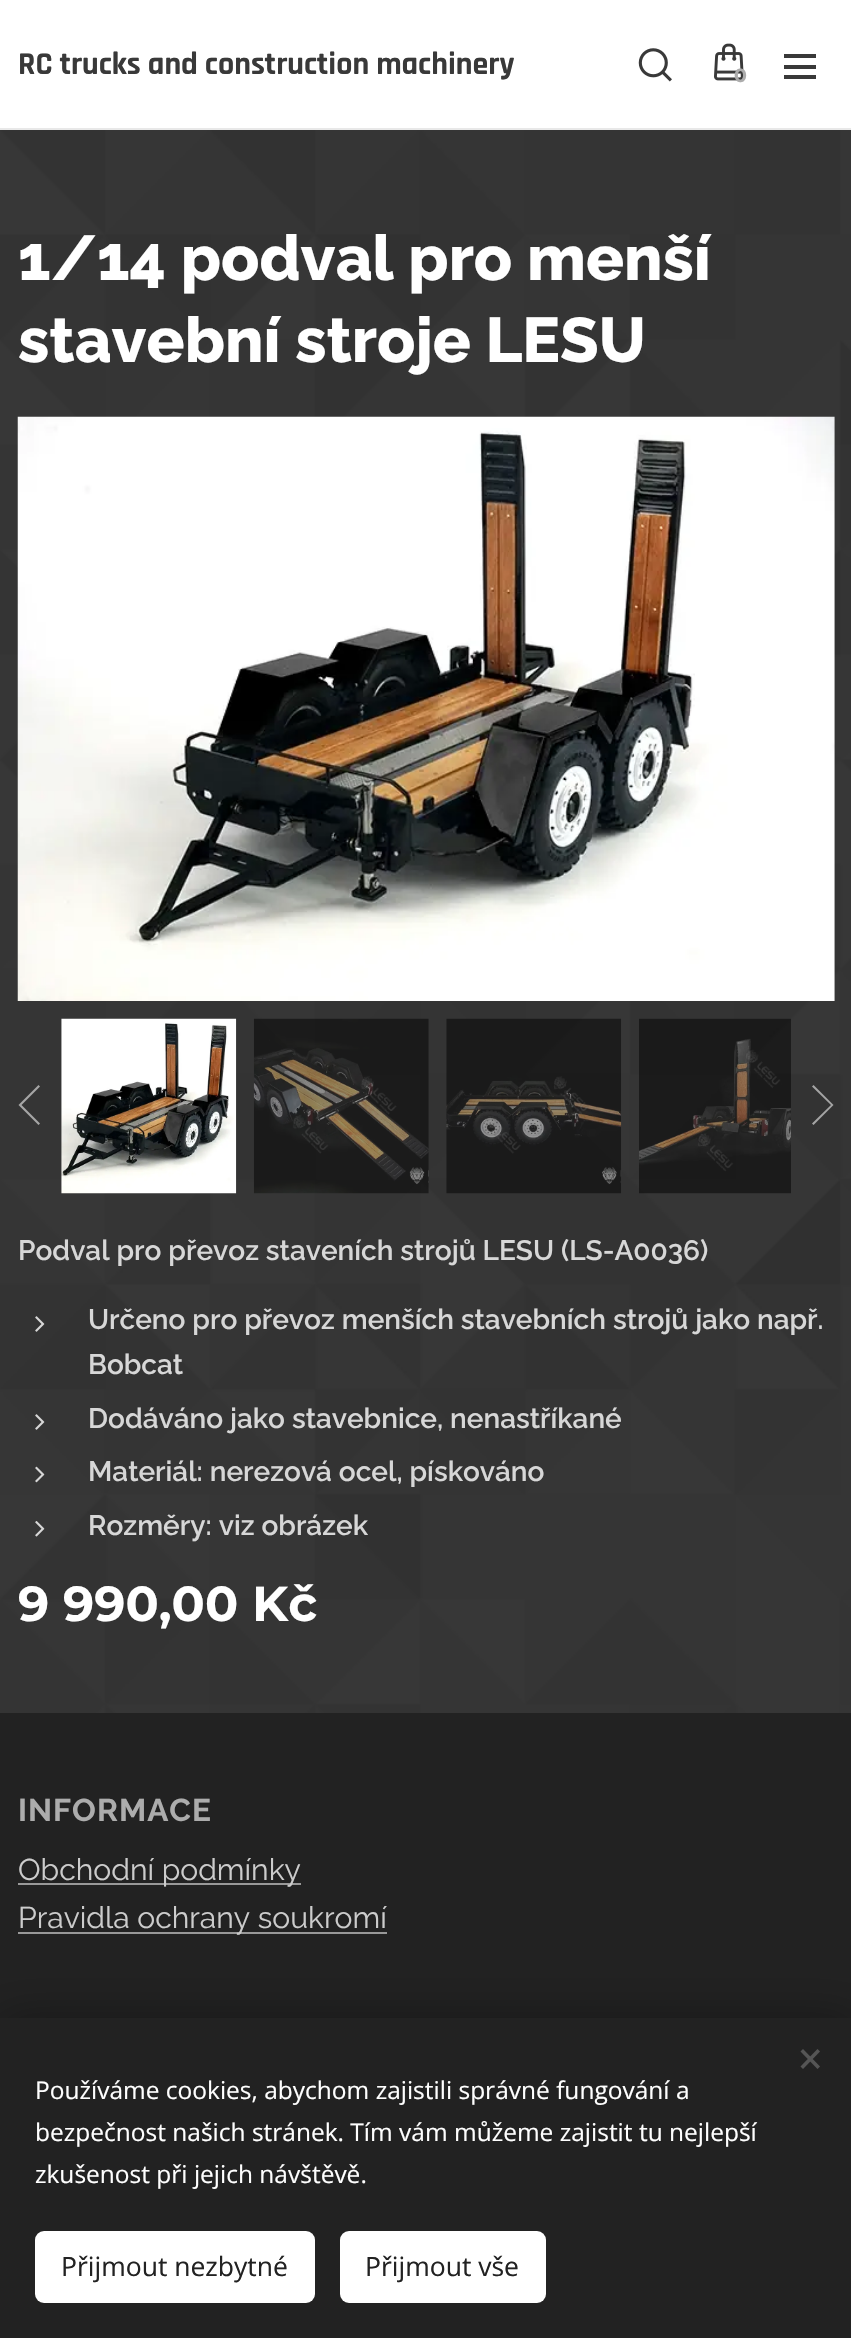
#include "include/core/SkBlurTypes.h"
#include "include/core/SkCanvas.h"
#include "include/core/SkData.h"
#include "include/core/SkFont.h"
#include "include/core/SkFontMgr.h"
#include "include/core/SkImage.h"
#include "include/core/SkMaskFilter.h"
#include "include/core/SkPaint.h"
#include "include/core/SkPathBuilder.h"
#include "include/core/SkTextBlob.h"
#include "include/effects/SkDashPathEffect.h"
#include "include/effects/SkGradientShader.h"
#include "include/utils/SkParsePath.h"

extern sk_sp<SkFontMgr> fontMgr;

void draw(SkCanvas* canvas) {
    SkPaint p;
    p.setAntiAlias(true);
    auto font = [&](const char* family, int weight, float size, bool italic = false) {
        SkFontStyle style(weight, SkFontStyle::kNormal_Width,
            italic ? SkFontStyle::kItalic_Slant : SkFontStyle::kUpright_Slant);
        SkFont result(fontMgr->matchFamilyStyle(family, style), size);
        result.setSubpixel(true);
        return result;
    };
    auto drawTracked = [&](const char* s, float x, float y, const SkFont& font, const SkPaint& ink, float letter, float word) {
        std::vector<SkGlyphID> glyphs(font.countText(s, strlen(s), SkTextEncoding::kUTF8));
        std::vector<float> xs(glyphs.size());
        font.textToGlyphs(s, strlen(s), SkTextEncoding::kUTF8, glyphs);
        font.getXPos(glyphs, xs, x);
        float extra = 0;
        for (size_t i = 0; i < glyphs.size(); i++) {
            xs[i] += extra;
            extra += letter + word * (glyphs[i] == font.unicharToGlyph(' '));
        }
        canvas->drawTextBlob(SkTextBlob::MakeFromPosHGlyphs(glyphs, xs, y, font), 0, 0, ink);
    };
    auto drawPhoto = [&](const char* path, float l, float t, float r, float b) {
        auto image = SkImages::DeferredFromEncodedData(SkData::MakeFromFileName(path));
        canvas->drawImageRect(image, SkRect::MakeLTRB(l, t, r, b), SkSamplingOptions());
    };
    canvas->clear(0xFF222222);
    p.setColor(0xFFFFFFFF);
    canvas->drawRect(SkRect::MakeLTRB(0, 0, 851, 128), p);
    auto font1 = font("Rajdhani", 700, 31.9f);
    p.setColor(0xFF393939);
    canvas->drawString("RC trucks and construction machinery", 18, 74, font1, p);
    drawPhoto("media/1.png", 638, 48, 672, 82);
    drawPhoto("media/2.png", 714, 43, 744, 81);
    auto font2 = font("Montserrat", 700, 19);
    p.setColor(0xFFACACAC);
    canvas->drawString("0", 734, 82, font2, p);
    {
        const struct { float l, t, r, b; SkColor color; } items[] = {
            {784, 65, 816, 69, 0xFF393939},
            {784, 54, 816, 58, 0xFF393939},
            {784, 75, 816, 79, 0xFF393939},
            {0, 128, 851, 130, 0xFFE8E8E8},
        };
        for (auto [l, t, r, b, color] : items) {
            p.setColor(color);
            canvas->drawRect(SkRect::MakeLTRB(l, t, r, b), p);
        }
    }
    drawPhoto("media/3.png", 0, 130, 851, 1713);
    auto font3 = font("Raleway", 800, 63);
    p.setColor(0xFFFFFFFF);
    canvas->drawString("1/14 podval pro menší", 18, 280, font3, p);
    canvas->drawString("stavební stroje LESU", 18, 362, font3, p);
    drawPhoto("media/4.png", 17, 416, 835, 1001);
    p.setColor(0xFFA6A6A6);
    canvas->drawPath(SkPathBuilder().moveTo(38.5f, 1125).lineTo(40, 1123.5f).lineTo(21.5f, 1105).lineTo(40, 1086.5f).lineTo(38.5f, 1085).lineTo(18.5f, 1105).close().detach(), p);
    drawPhoto("media/5.png", 61, 1018, 237, 1194);
    drawPhoto("media/6.png", 253, 1018, 429, 1194);
    drawPhoto("media/7.png", 446, 1018, 622, 1194);
    drawPhoto("media/8.png", 639, 1018, 791, 1194);
    p.setColor(0xFFA5A5A5);
    canvas->drawPath(SkPathBuilder().moveTo(813.5f, 1085).lineTo(812, 1086.5f).lineTo(831, 1105).lineTo(812, 1123.5f).lineTo(813.5f, 1125).lineTo(833.5f, 1105).close().detach(), p);
    auto font4 = font("Raleway", 600, 28);
    p.setColor(0xFFD7D7D7);
    canvas->drawString("Podval pro převoz staveních strojů LESU (LS-A0036)", 18, 1260, font4, p);
    drawPhoto("media/9.png", 35, 1316, 45, 1332);
    canvas->drawString("Určeno pro převoz menších stavebních strojů jako např.", 88, 1329, font4, p);
    canvas->drawString("Bobcat", 88, 1374, font4, p);
    drawPhoto("media/10.png", 35, 1414, 45, 1430);
    canvas->drawString("Dodáváno jako stavebnice, nenastříkané", 88, 1428, font4, p);
    drawPhoto("media/11.png", 35, 1466, 45, 1483);
    canvas->drawString("Materiál: nerezová ocel, pískováno", 88, 1481, font4, p);
    drawPhoto("media/12.png", 35, 1521, 45, 1537);
    canvas->drawString("Rozměry: viz obrázek", 88, 1535, font4, p);
    auto font5 = font("Montserrat", 700, 49);
    p.setColor(0xFFFFFFFF);
    canvas->drawString("9 990,00 Kč", 18, 1621, font5, p);
    auto font6 = font("Raleway", 700, 31.5f);
    p.setColor(0xFFACACAC);
    drawTracked("INFORMACE", 18, 1821, font6, p, 1, 0);
    p.setColor(0xFF999999);
    canvas->drawRect(SkRect::MakeLTRB(18, 1883, 301, 1885), p);
    auto font7 = font("Raleway", 400, 30.1f);
    p.setColor(0xFFCCCCCC);
    canvas->drawString("Obchodní podmínky", 18, 1880, font7, p);
    p.setColor(0xFF999999);
    canvas->drawRect(SkRect::MakeLTRB(18, 1932, 387, 1934), p);
    p.setColor(0xFFCCCCCC);
    canvas->drawString("Pravidla ochrany soukromí", 18, 1928, font7, p);
    p.setColor(0x54000000);
    p.setMaskFilter(SkMaskFilter::MakeBlur(kNormal_SkBlurStyle, 22));
    canvas->drawRect(SkRect::MakeLTRB(0, 2018, 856, 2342), p);
    p.setMaskFilter(nullptr);
    p.setColor(0xFF222222);
    canvas->drawRect(SkRect::MakeLTRB(0, 2018, 851, 2338), p);
    p.setColor(0xFF555555);
    canvas->drawPath(SkPathBuilder().moveTo(800.5f, 2066.5f).lineTo(817.5f, 2049).lineTo(820, 2051.5f).lineTo(803, 2069).close().detach(), p);
    canvas->drawPath(SkPathBuilder().moveTo(803, 2049).lineTo(820, 2066.5f).lineTo(817.5f, 2069).lineTo(800.5f, 2051.5f).close().detach(), p);
    auto font8 = font("Open Sans", 400, 24.5f);
    p.setColor(0xFFFFFFFF);
    {
        const struct { const char* s; float x, y; } items[] = {
            {"Používáme cookies, abychom zajistili správné fungování a", 35, 2099},
            {"bezpečnost našich stránek. Tím vám můžeme zajistit tu nejlepší", 35, 2141},
            {"zkušenost při jejich návštěvě.", 35, 2183},
        };
        for (auto [s, x, y] : items) {
            canvas->drawString(s, x, y, font8, p);
        }
    }
    canvas->drawRoundRect(SkRect::MakeLTRB(35, 2231, 315, 2303), 9, 9, p);
    auto font9 = font("Open Sans", 400, 26.5f);
    p.setColor(0xFF222222);
    canvas->drawString("Přijmout nezbytné", 61, 2276, font9, p);
    p.setColor(0xFFFFFFFF);
    canvas->drawRoundRect(SkRect::MakeLTRB(340, 2231, 546, 2303), 9, 9, p);
    p.setColor(0xFF222222);
    canvas->drawString("Přijmout vše", 365, 2276, font9, p);
}
